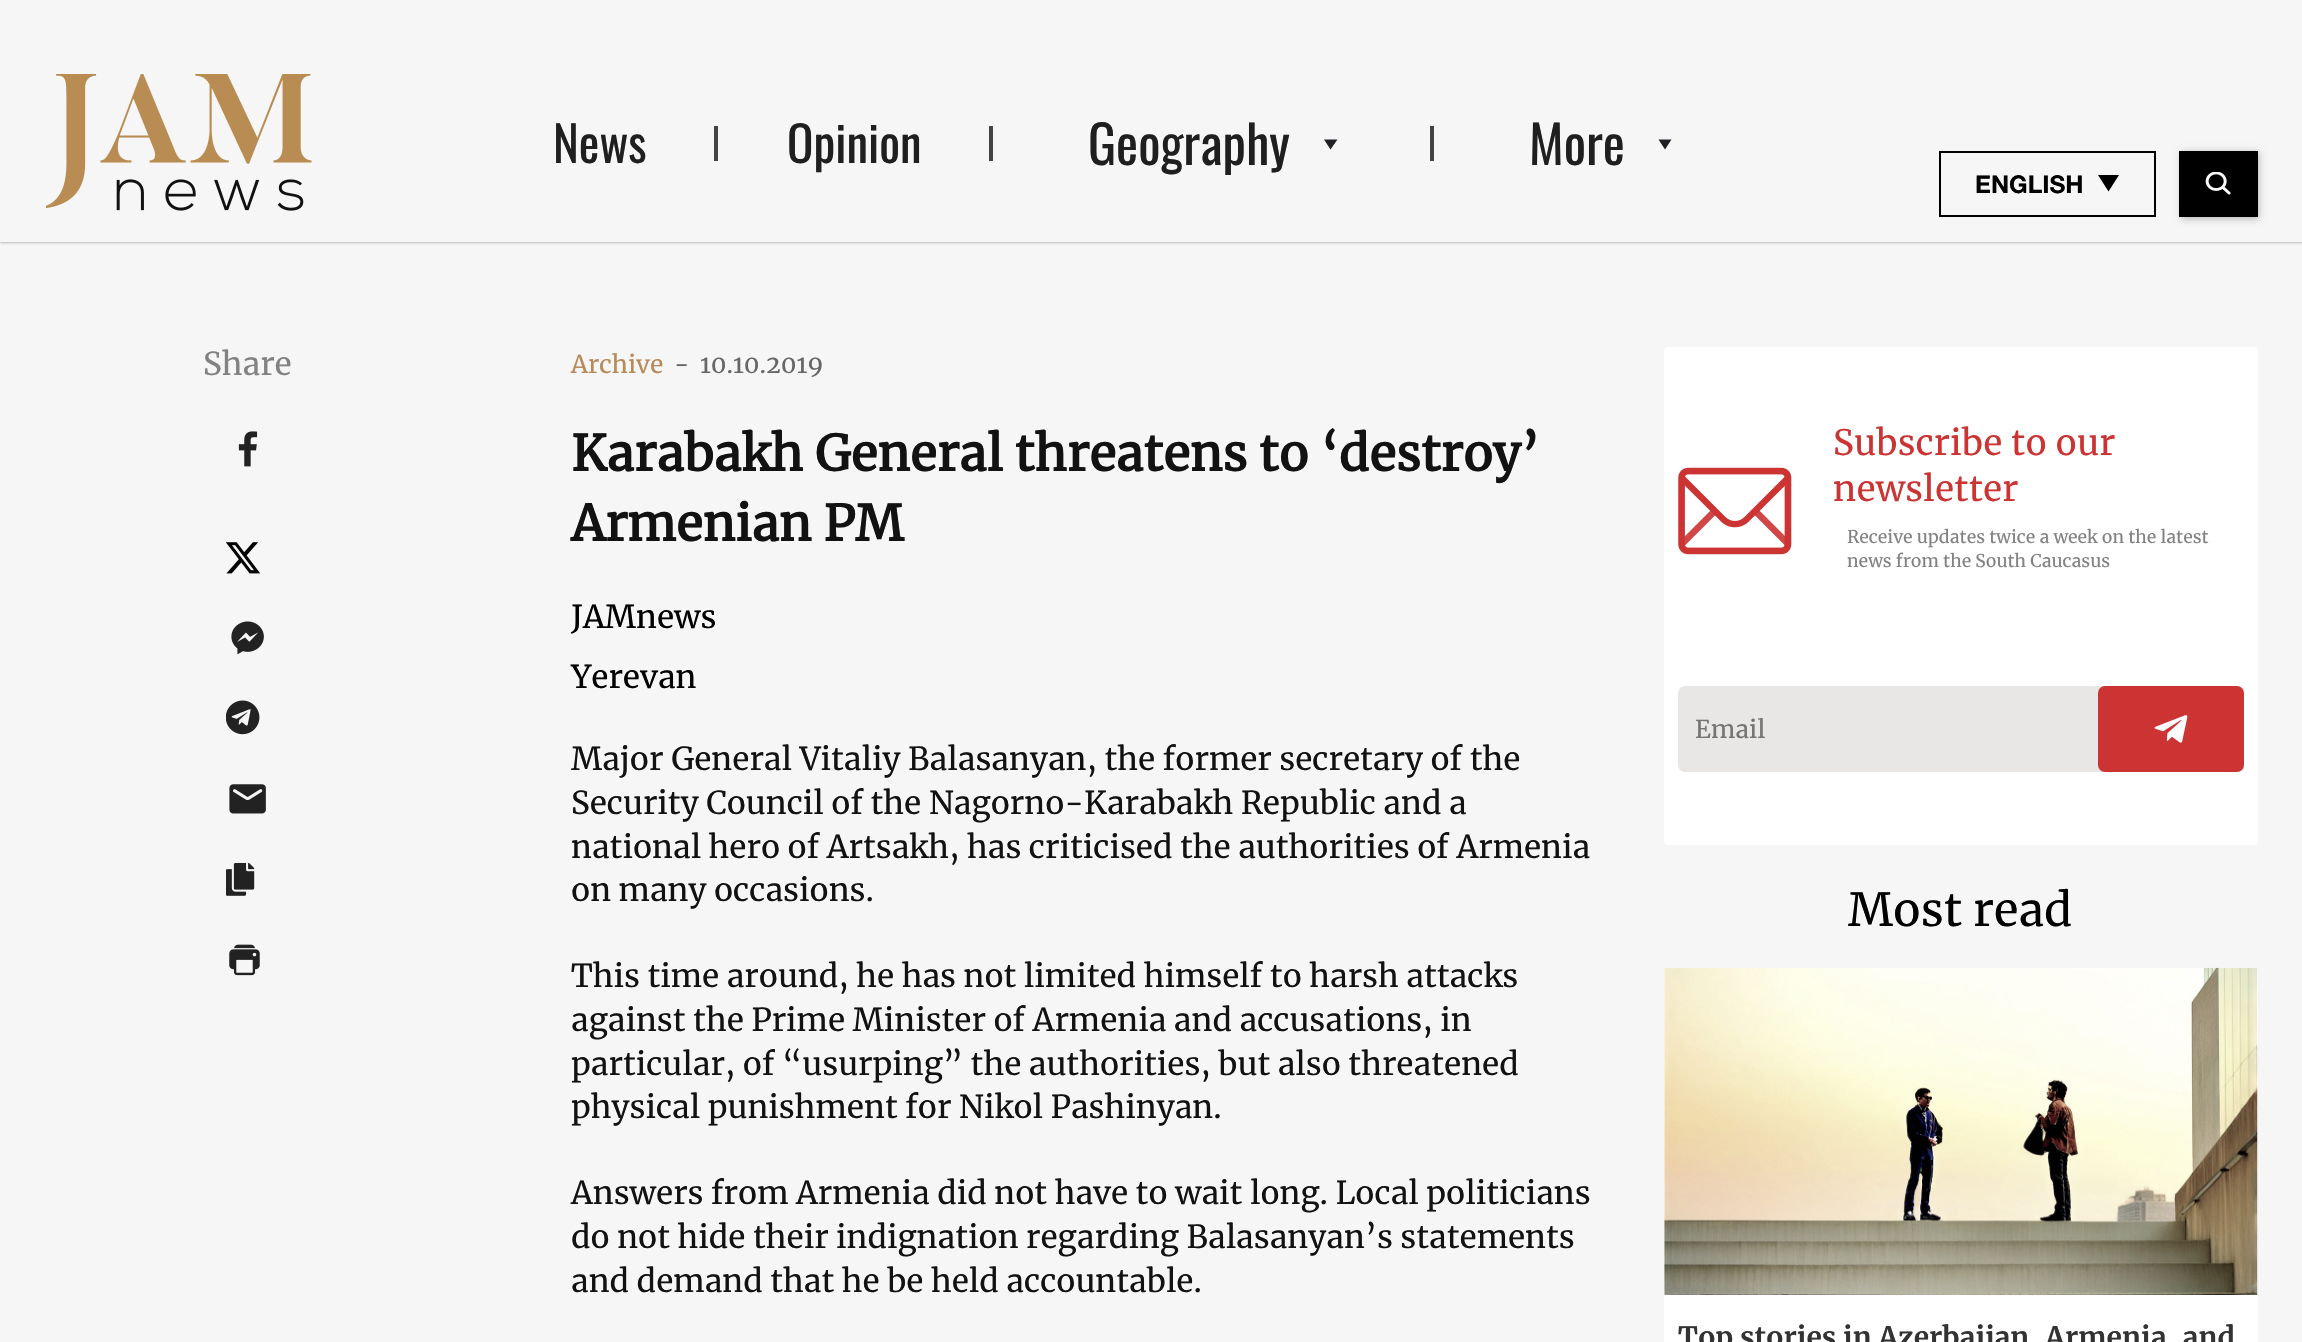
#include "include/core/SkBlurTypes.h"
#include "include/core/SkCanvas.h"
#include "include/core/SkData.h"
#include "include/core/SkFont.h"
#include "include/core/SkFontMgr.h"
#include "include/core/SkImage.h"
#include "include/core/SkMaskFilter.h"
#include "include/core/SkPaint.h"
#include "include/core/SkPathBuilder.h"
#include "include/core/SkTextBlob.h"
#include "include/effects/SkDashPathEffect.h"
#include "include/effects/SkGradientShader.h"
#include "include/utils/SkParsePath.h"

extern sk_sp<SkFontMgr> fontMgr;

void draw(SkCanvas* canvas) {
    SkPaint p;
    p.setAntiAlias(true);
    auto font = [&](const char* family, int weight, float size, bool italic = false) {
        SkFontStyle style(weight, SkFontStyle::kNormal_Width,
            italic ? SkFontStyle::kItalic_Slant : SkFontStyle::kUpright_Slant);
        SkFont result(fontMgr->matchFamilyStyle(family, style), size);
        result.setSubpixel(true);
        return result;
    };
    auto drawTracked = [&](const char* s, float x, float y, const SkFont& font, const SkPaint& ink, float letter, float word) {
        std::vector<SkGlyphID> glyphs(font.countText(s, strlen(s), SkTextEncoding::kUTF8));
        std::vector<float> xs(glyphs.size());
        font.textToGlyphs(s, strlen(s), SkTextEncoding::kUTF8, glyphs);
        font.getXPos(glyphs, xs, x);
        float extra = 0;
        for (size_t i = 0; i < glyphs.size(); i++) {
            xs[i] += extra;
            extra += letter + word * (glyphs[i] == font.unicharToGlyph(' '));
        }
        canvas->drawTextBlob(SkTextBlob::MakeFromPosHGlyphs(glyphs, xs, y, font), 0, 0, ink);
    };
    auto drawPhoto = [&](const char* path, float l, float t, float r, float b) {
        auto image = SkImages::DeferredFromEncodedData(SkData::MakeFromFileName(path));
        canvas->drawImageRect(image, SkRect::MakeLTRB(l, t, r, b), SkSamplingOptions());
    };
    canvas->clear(0xFFF6F6F6);
    p.setColor(0x40000000);
    p.setMaskFilter(SkMaskFilter::MakeBlur(kNormal_SkBlurStyle, 1));
    canvas->drawRect(SkRect::MakeLTRB(0, 2, 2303, 243), p);
    p.setMaskFilter(nullptr);
    p.setColor(0xFFF6F6F6);
    canvas->drawRect(SkRect::MakeLTRB(0, 0, 2302, 242), p);
    drawPhoto("media/1.png", 46, 74, 312, 211);
    auto font1 = font("Oswald", 400, 49);
    p.setColor(0xFF1F1F1F);
    canvas->drawString("News", 553, 163, font1, p);
    p.setColor(0xFF444444);
    canvas->drawRect(SkRect::MakeLTRB(714, 126, 718, 161), p);
    p.setColor(0xFF1F1F1F);
    canvas->drawString("Opinion", 787, 163, font1, p);
    p.setColor(0xFF444444);
    canvas->drawRect(SkRect::MakeLTRB(989, 126, 993, 161), p);
    auto font2 = font("Oswald", 400, 52.5f);
    p.setColor(0xFF1F1F1F);
    canvas->drawString("Geography", 1088, 165, font2, p);
    p.setColor(0xFF1F2124);
    canvas->drawPath(SkPathBuilder().moveTo(1337.5f, 139.5f).lineTo(1330.5f, 149.5f).lineTo(1324, 139.5f).close().detach(), p);
    p.setColor(0xFF444444);
    canvas->drawRect(SkRect::MakeLTRB(1430, 126, 1434, 161), p);
    p.setColor(0xFF1F1F1F);
    canvas->drawString("More", 1529, 165, font2, p);
    p.setColor(0xFF1F2124);
    canvas->drawPath(SkPathBuilder().moveTo(1671.5f, 139.5f).lineTo(1665, 149.5f).lineTo(1658.5f, 139.5f).close().detach(), p);
    p.setStyle(SkPaint::kStroke_Style);
    p.setStrokeWidth(2);
    p.setColor(0xFF000000);
    canvas->drawRect(SkRect::MakeLTRB(1940, 152, 2155, 216), p);
    auto font3 = font("Helvetica Neue", 700, 24.5f);
    p.setStyle(SkPaint::kFill_Style);
    canvas->drawString("ENGLISH", 1975, 193, font3, p);
    canvas->drawPath(SkPathBuilder().moveTo(2119, 175).lineTo(2108.5f, 191.5f).lineTo(2098, 175).close().detach(), p);
    p.setColor(0x40000000);
    p.setMaskFilter(SkMaskFilter::MakeBlur(kNormal_SkBlurStyle, 3.5f));
    canvas->drawRect(SkRect::MakeLTRB(2181, 152, 2259, 219), p);
    p.setMaskFilter(nullptr);
    p.setColor(0xFF000000);
    canvas->drawRect(SkRect::MakeLTRB(2179, 151, 2258, 217), p);
    drawPhoto("media/2.png", 2205, 172, 2231, 195);
    auto font4 = font("Merriweather", 400, 31.5f);
    p.setColor(0xFF828282);
    canvas->drawString("Share", 203, 375, font4, p);
    drawPhoto("media/3.png", 238, 431, 258, 467);
    drawPhoto("media/4.png", 226, 542, 261, 574);
    drawPhoto("media/5.png", 231, 621, 264, 655);
    drawPhoto("media/6.png", 226, 700, 260, 735);
    drawPhoto("media/7.png", 229, 784, 266, 814);
    drawPhoto("media/8.png", 226, 863, 255, 896);
    drawPhoto("media/9.png", 229, 944, 260, 976);
    auto font5 = font("Merriweather", 400, 24.5f);
    p.setColor(0xFFB88A58);
    canvas->drawString("Archive", 571, 373, font5, p);
    p.setColor(0xFF666666);
    canvas->drawString("-", 674, 373, font5, p);
    canvas->drawString("10.10.2019", 700, 373, font5, p);
    auto font6 = font("Merriweather", 700, 49);
    p.setColor(0xFF121212);
    canvas->drawString("Karabakh General threatens to ‘destroy’", 571, 471, font6, p);
    canvas->drawString("Armenian PM", 571, 541, font6, p);
    p.setColor(0xFF000000);
    canvas->drawString("JAMnews", 571, 628, font4, p);
    canvas->drawString("Yerevan", 571, 688, font4, p);
    p.setColor(0xFF121212);
    {
        const struct { const char* s; float x, y; } items[] = {
            {"Major General Vitaliy Balasanyan, the former secretary of the", 571, 770},
            {"Security Council of the Nagorno-Karabakh Republic and a", 571, 814},
            {"national hero of Artsakh, has criticised the authorities of Armenia", 571, 858},
            {"on many occasions.", 571, 901},
            {"This time around, he has not limited himself to harsh attacks", 571, 987},
            {"against the Prime Minister of Armenia and accusations, in", 571, 1031},
            {"particular, of “usurping” the authorities, but also threatened", 571, 1075},
            {"physical punishment for Nikol Pashinyan.", 571, 1118},
            {"Answers from Armenia did not have to wait long. Local politicians", 571, 1204},
            {"do not hide their indignation regarding Balasanyan’s statements", 571, 1248},
            {"and demand that he be held accountable.", 571, 1292},
        };
        for (auto [s, x, y] : items) {
            canvas->drawString(s, x, y, font4, p);
        }
    }
    p.setColor(0xFFFFFFFF);
    canvas->drawRoundRect(SkRect::MakeLTRB(1664, 347, 2258, 845), 4, 4, p);
    drawPhoto("media/10.png", 1678, 467, 1792, 555);
    auto font7 = font("Merriweather", 400, 35);
    p.setColor(0xFFCC3333);
    drawTracked("Subscribe to our", 1833, 455, font7, p, 0.2f, 0);
    drawTracked("newsletter", 1833, 501, font7, p, 0.2f, 0);
    auto font8 = font("Merriweather", 400, 17.5f);
    p.setColor(0xFF828282);
    canvas->drawString("Receive updates twice a week on the latest", 1847, 543, font8, p);
    canvas->drawString("news from the South Caucasus", 1847, 567, font8, p);
    p.setColor(0xFFE9E6E6);
    canvas->drawRoundRect(SkRect::MakeLTRB(1678, 686, 2244, 772), 7, 7, p);
    p.setColor(0xFF757575);
    canvas->drawString("Email", 1695, 738, font5, p);
    p.setColor(0xFFCC3333);
    canvas->drawRoundRect(SkRect::MakeLTRB(2098, 686, 2244, 772), 7, 7, p);
    drawPhoto("media/11.png", 2154, 715, 2188, 743);
    auto font9 = font("Merriweather", 400, 45.5f);
    p.setColor(0xFF000000);
    canvas->drawString("Most read", 1848, 926, font9, p);
    p.setColor(0xFFFFFFFF);
    canvas->drawRect(SkRect::MakeLTRB(1664, 968, 2258, 1342), p);
    drawPhoto("media/12.png", 1664, 967, 2258, 1295);
    auto font10 = font("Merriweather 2", 700, 28);
    p.setColor(0xFF333333);
    canvas->drawString("Top stories in Azerbaijan, Armenia, and", 1678, 1347, font10, p);
}
